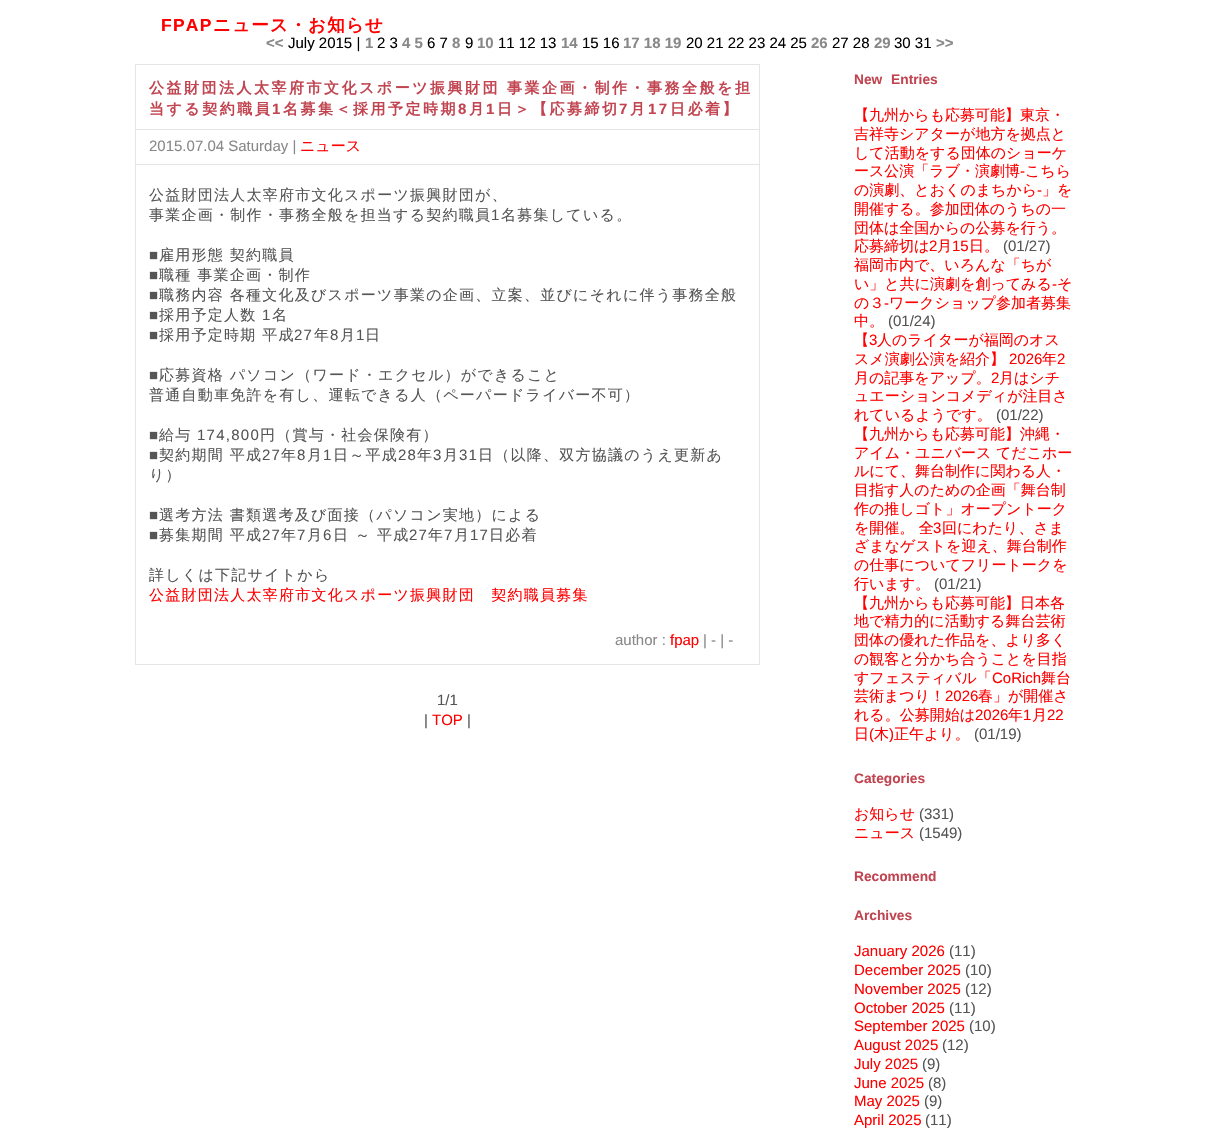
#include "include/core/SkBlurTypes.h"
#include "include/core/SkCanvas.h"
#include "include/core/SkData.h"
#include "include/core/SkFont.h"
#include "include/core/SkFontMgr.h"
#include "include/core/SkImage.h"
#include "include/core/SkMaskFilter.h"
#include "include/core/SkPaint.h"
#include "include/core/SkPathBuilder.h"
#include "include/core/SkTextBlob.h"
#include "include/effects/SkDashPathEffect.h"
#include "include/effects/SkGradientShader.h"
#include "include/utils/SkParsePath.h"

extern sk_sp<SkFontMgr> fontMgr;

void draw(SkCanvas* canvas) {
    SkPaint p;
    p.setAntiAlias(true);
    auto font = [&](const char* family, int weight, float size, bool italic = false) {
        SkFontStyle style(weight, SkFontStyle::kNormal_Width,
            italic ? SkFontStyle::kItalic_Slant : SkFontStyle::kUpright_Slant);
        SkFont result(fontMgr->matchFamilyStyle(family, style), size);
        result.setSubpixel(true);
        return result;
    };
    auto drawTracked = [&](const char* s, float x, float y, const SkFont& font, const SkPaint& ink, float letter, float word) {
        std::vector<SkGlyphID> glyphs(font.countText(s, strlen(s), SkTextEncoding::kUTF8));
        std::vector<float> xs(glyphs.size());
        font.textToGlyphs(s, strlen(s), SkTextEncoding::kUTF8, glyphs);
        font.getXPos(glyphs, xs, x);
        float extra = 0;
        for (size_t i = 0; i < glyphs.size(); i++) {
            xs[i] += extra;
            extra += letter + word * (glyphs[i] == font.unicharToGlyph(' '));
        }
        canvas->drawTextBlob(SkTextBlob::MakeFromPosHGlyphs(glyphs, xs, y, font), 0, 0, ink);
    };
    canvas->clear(0xFFFFFFFF);
    auto font1 = font("Liberation Sans", 700, 17.5f);
    p.setColor(0xFFFF0000);
    drawTracked("FPAP", 161, 31, font1, p, 1.25f, 0);
    auto font2 = font("WenQuanYi Zen Hei", 700, 17.5f);
    drawTracked("ニュース・お知らせ", 213, 31, font2, p, 1.25f, 0);
    auto font3 = font("Liberation Sans", 700, 15);
    p.setColor(0xFF888888);
    canvas->drawString("<<", 266, 48, font3, p);
    auto font4 = font("Liberation Sans", 400, 15);
    p.setColor(0xFF000000);
    canvas->drawString("July 2015 |", 288, 48, font4, p);
    p.setColor(0xFF888888);
    canvas->drawString("1", 365, 48, font3, p);
    p.setColor(0xFF000000);
    canvas->drawString("2 3", 377, 48, font4, p);
    p.setColor(0xFF888888);
    canvas->drawString("4 5", 402, 48, font3, p);
    p.setColor(0xFF000000);
    canvas->drawString("6 7", 427, 48, font4, p);
    p.setColor(0xFF888888);
    canvas->drawString("8", 452, 48, font3, p);
    p.setColor(0xFF000000);
    canvas->drawString("9", 465, 48, font4, p);
    p.setColor(0xFF888888);
    canvas->drawString("10", 477, 48, font3, p);
    p.setColor(0xFF000000);
    canvas->drawString("11 12 13", 498, 48, font4, p);
    p.setColor(0xFF888888);
    canvas->drawString("14", 561, 48, font3, p);
    p.setColor(0xFF000000);
    canvas->drawString("15 16", 582, 48, font4, p);
    p.setColor(0xFF888888);
    canvas->drawString("17 18 19", 623, 48, font3, p);
    p.setColor(0xFF000000);
    canvas->drawString("20 21 22 23 24 25", 686, 48, font4, p);
    p.setColor(0xFF888888);
    canvas->drawString("26", 811, 48, font3, p);
    p.setColor(0xFF000000);
    canvas->drawString("27 28", 832, 48, font4, p);
    p.setColor(0xFF888888);
    canvas->drawString("29", 874, 48, font3, p);
    p.setColor(0xFF000000);
    canvas->drawString("30 31", 894, 48, font4, p);
    p.setColor(0xFF888888);
    canvas->drawString(">>", 936, 48, font3, p);
    p.setStyle(SkPaint::kStroke_Style);
    p.setStrokeWidth(1);
    p.setColor(0xFFE5E5E5);
    canvas->drawRect(SkRect::MakeLTRB(135.5f, 64.5f, 759.5f, 664.5f), p);
    p.setStyle(SkPaint::kFill_Style);
    canvas->drawRect(SkRect::MakeLTRB(136, 129, 759, 130), p);
    auto font5 = font("WenQuanYi Zen Hei", 700, 15);
    p.setColor(0xFFC14450);
    drawTracked("公益財団法人太宰府市文化スポーツ振興財団 事業企画・制作・事務全般を担", 149, 93, font5, p, 2.5f, 0);
    drawTracked("当する契約職員", 149, 114, font5, p, 2.5f, 0);
    drawTracked("1", 272, 114, font3, p, 2.5f, 0);
    drawTracked("名募集＜採用予定時期", 283, 114, font5, p, 2.5f, 0);
    drawTracked("8", 458, 114, font3, p, 2.5f, 0);
    drawTracked("月", 469, 114, font5, p, 2.5f, 0);
    drawTracked("1", 486, 114, font3, p, 2.5f, 0);
    drawTracked("日＞【応募締切", 497, 114, font5, p, 2.5f, 0);
    drawTracked("7", 619, 114, font3, p, 2.5f, 0);
    drawTracked("月", 630, 114, font5, p, 2.5f, 0);
    drawTracked("17", 648, 114, font3, p, 2.5f, 0);
    drawTracked("日必着】", 670, 114, font5, p, 2.5f, 0);
    p.setColor(0xFFE5E5E5);
    canvas->drawRect(SkRect::MakeLTRB(136, 164, 759, 165), p);
    p.setColor(0xFF888888);
    canvas->drawString("2015.07.04 Saturday |", 149, 151, font4, p);
    auto font6 = font("WenQuanYi Zen Hei", 500, 15);
    p.setColor(0xFFFF0000);
    canvas->drawString("ニュース", 300, 151, font6, p);
    p.setColor(0xFF555555);
    drawTracked("公益財団法人太宰府市文化スポーツ振興財団が、", 149, 200, font6, p, 1.25f, 0);
    drawTracked("事業企画・制作・事務全般を担当する契約職員", 149, 220, font6, p, 1.25f, 0);
    drawTracked("1", 491, 220, font4, p, 1.25f, 0);
    drawTracked("名募集している。", 501, 220, font6, p, 1.25f, 0);
    drawTracked("■", 149, 260, font4, p, 1.25f, 0);
    drawTracked("雇用形態 契約職員", 159, 260, font6, p, 1.25f, 0);
    drawTracked("■", 149, 280, font4, p, 1.25f, 0);
    drawTracked("職種 事業企画・制作", 159, 280, font6, p, 1.25f, 0);
    drawTracked("■", 149, 300, font4, p, 1.25f, 0);
    drawTracked("職務内容 各種文化及びスポーツ事業の企画、立案、並びにそれに伴う事務全般", 159, 300, font6, p, 1.25f, 0);
    drawTracked("■", 149, 320, font4, p, 1.25f, 0);
    drawTracked("採用予定人数", 159, 320, font6, p, 1.25f, 0);
    drawTracked("1", 262, 320, font4, p, 1.25f, 0);
    drawTracked("名", 272, 320, font6, p, 1.25f, 0);
    drawTracked("■", 149, 340, font4, p, 1.25f, 0);
    drawTracked("採用予定時期 平成", 159, 340, font6, p, 1.25f, 0);
    drawTracked("27", 294, 340, font4, p, 1.25f, 0);
    drawTracked("年", 314, 340, font6, p, 1.25f, 0);
    drawTracked("8", 330, 340, font4, p, 1.25f, 0);
    drawTracked("月", 340, 340, font6, p, 1.25f, 0);
    drawTracked("1", 356, 340, font4, p, 1.25f, 0);
    drawTracked("日", 365, 340, font6, p, 1.25f, 0);
    drawTracked("■", 149, 380, font4, p, 1.25f, 0);
    drawTracked("応募資格 パソコン（ワード・エクセル）ができること", 159, 380, font6, p, 1.25f, 0);
    drawTracked("普通自動車免許を有し、運転できる人（ペーパードライバー不可）", 149, 400, font6, p, 1.25f, 0);
    drawTracked("■", 149, 440, font4, p, 1.25f, 0);
    drawTracked("給与", 159, 440, font6, p, 1.25f, 0);
    drawTracked("174,800", 197, 440, font4, p, 1.25f, 0);
    drawTracked("円（賞与・社会保険有）", 260, 440, font6, p, 1.25f, 0);
    drawTracked("■", 149, 460, font4, p, 1.25f, 0);
    drawTracked("契約期間 平成", 159, 460, font6, p, 1.25f, 0);
    drawTracked("27", 262, 460, font4, p, 1.25f, 0);
    drawTracked("年", 281, 460, font6, p, 1.25f, 0);
    drawTracked("8", 297, 460, font4, p, 1.25f, 0);
    drawTracked("月", 307, 460, font6, p, 1.25f, 0);
    drawTracked("1", 323, 460, font4, p, 1.25f, 0);
    drawTracked("日～平成", 333, 460, font6, p, 1.25f, 0);
    drawTracked("28", 398, 460, font4, p, 1.25f, 0);
    drawTracked("年", 417, 460, font6, p, 1.25f, 0);
    drawTracked("3", 433, 460, font4, p, 1.25f, 0);
    drawTracked("月", 443, 460, font6, p, 1.25f, 0);
    drawTracked("31", 459, 460, font4, p, 1.25f, 0);
    drawTracked("日（以降、双方協議のうえ更新あ", 478, 460, font6, p, 1.25f, 0);
    drawTracked("り）", 149, 480, font6, p, 1.25f, 0);
    drawTracked("■", 149, 520, font4, p, 1.25f, 0);
    drawTracked("選考方法 書類選考及び面接（パソコン実地）による", 159, 520, font6, p, 1.25f, 0);
    drawTracked("■", 149, 540, font4, p, 1.25f, 0);
    drawTracked("募集期間 平成", 159, 540, font6, p, 1.25f, 0);
    drawTracked("27", 262, 540, font4, p, 1.25f, 0);
    drawTracked("年", 281, 540, font6, p, 1.25f, 0);
    drawTracked("7", 297, 540, font4, p, 1.25f, 0);
    drawTracked("月", 307, 540, font6, p, 1.25f, 0);
    drawTracked("6", 323, 540, font4, p, 1.25f, 0);
    drawTracked("日 ～ 平成", 333, 540, font6, p, 1.25f, 0);
    drawTracked("27", 409, 540, font4, p, 1.25f, 0);
    drawTracked("年", 428, 540, font6, p, 1.25f, 0);
    drawTracked("7", 444, 540, font4, p, 1.25f, 0);
    drawTracked("月", 454, 540, font6, p, 1.25f, 0);
    drawTracked("17", 470, 540, font4, p, 1.25f, 0);
    drawTracked("日必着", 489, 540, font6, p, 1.25f, 0);
    drawTracked("詳しくは下記サイトから", 149, 580, font6, p, 1.25f, 0);
    p.setColor(0xFFFF0000);
    drawTracked("公益財団法人太宰府市文化スポーツ振興財団　契約職員募集", 149, 600, font6, p, 1.25f, 0);
    p.setColor(0xFF888888);
    canvas->drawString("author :", 615, 645, font4, p);
    p.setColor(0xFFFF0000);
    canvas->drawString("fpap", 670, 645, font4, p);
    p.setColor(0xFF888888);
    canvas->drawString("| - | -", 703, 645, font4, p);
    p.setColor(0xFF555555);
    canvas->drawString("1/1", 437, 705, font4, p);
    canvas->drawString("|", 424, 725, font4, p);
    p.setColor(0xFFFF0000);
    canvas->drawString("TOP", 432, 725, font4, p);
    p.setColor(0xFF555555);
    canvas->drawString("|", 467, 725, font4, p);
    auto font7 = font("Liberation Sans", 700, 13.75f);
    p.setColor(0xFFC14450);
    drawTracked("New Entries", 854, 84, font7, p, 0, 5);
    p.setColor(0xFFFF0000);
    {
        const struct { const char* s; float x, y; } items[] = {
            {"【九州からも応募可能】東京・", 854, 120},
            {"吉祥寺シアターが地方を拠点と", 854, 139},
            {"して活動をする団体のショーケ", 854, 158},
            {"ース公演「ラブ・演劇博", 854, 176},
        };
        for (auto [s, x, y] : items) {
            canvas->drawString(s, x, y, font6, p);
        }
    }
    canvas->drawString("-", 1020, 176, font4, p);
    canvas->drawString("こちら", 1025, 176, font6, p);
    canvas->drawString("の演劇、とおくのまちから", 854, 195, font6, p);
    canvas->drawString("-", 1037, 195, font4, p);
    {
        const struct { const char* s; float x, y; } items[] = {
            {"」を", 1042, 195},
            {"開催する。参加団体のうちの一", 854, 214},
            {"団体は全国からの公募を行う。", 854, 233},
            {"応募締切は", 854, 251},
        };
        for (auto [s, x, y] : items) {
            canvas->drawString(s, x, y, font6, p);
        }
    }
    canvas->drawString("2", 929, 251, font4, p);
    canvas->drawString("月", 937, 251, font6, p);
    canvas->drawString("15", 952, 251, font4, p);
    canvas->drawString("日。", 969, 251, font6, p);
    p.setColor(0xFF555555);
    canvas->drawString("(01/27)", 1003, 251, font4, p);
    p.setColor(0xFFFF0000);
    canvas->drawString("福岡市内で、いろんな「ちが", 854, 270, font6, p);
    canvas->drawString("い」と共に演劇を創ってみる", 854, 289, font6, p);
    canvas->drawString("‐", 1052, 289, font4, p);
    canvas->drawString("そ", 1057, 289, font6, p);
    canvas->drawString("の３", 854, 308, font6, p);
    canvas->drawString("-", 884, 308, font4, p);
    canvas->drawString("ワークショップ参加者募集", 889, 308, font6, p);
    canvas->drawString("中。", 854, 326, font6, p);
    p.setColor(0xFF555555);
    canvas->drawString("(01/24)", 888, 326, font4, p);
    p.setColor(0xFFFF0000);
    canvas->drawString("【", 854, 345, font6, p);
    canvas->drawString("3", 869, 345, font4, p);
    canvas->drawString("人のライターが福岡のオス", 877, 345, font6, p);
    canvas->drawString("スメ演劇公演を紹介】", 854, 364, font6, p);
    canvas->drawString("2026", 1009, 364, font4, p);
    canvas->drawString("年", 1042, 364, font6, p);
    canvas->drawString("2", 1057, 364, font4, p);
    canvas->drawString("月の記事をアップ。", 854, 383, font6, p);
    canvas->drawString("2", 991, 383, font4, p);
    {
        const struct { const char* s; float x, y; } items[] = {
            {"月はシチ", 999, 383},
            {"ュエーションコメディが注目さ", 854, 401},
            {"れているようです。", 854, 420},
        };
        for (auto [s, x, y] : items) {
            canvas->drawString(s, x, y, font6, p);
        }
    }
    p.setColor(0xFF555555);
    canvas->drawString("(01/22)", 996, 420, font4, p);
    p.setColor(0xFFFF0000);
    {
        const struct { const char* s; float x, y; } items[] = {
            {"【九州からも応募可能】沖縄・", 854, 439},
            {"アイム・ユニバース てだこホー", 854, 458},
            {"ルにて、舞台制作に関わる人・", 854, 476},
            {"目指す人のための企画「舞台制", 854, 495},
            {"作の推しゴト」オープントーク", 854, 514},
            {"を開催。 全", 854, 533},
        };
        for (auto [s, x, y] : items) {
            canvas->drawString(s, x, y, font6, p);
        }
    }
    canvas->drawString("3", 933, 533, font4, p);
    {
        const struct { const char* s; float x, y; } items[] = {
            {"回にわたり、さま", 942, 533},
            {"ざまなゲストを迎え、舞台制作", 854, 551},
            {"の仕事についてフリートークを", 854, 570},
            {"行います。", 854, 589},
        };
        for (auto [s, x, y] : items) {
            canvas->drawString(s, x, y, font6, p);
        }
    }
    p.setColor(0xFF555555);
    canvas->drawString("(01/21)", 934, 589, font4, p);
    p.setColor(0xFFFF0000);
    {
        const struct { const char* s; float x, y; } items[] = {
            {"【九州からも応募可能】日本各", 854, 608},
            {"地で精力的に活動する舞台芸術", 854, 626},
            {"団体の優れた作品を、より多く", 854, 645},
            {"の観客と分かち合うことを目指", 854, 664},
            {"すフェスティバル「", 854, 683},
        };
        for (auto [s, x, y] : items) {
            canvas->drawString(s, x, y, font6, p);
        }
    }
    canvas->drawString("CoRich", 992, 683, font4, p);
    canvas->drawString("舞台", 1041, 683, font6, p);
    canvas->drawString("芸術まつり！", 854, 701, font6, p);
    canvas->drawString("2026", 945, 701, font4, p);
    canvas->drawString("春」が開催さ", 978, 701, font6, p);
    canvas->drawString("れる。公募開始は", 854, 720, font6, p);
    canvas->drawString("2026", 975, 720, font4, p);
    canvas->drawString("年", 1008, 720, font6, p);
    canvas->drawString("1", 1023, 720, font4, p);
    canvas->drawString("月", 1032, 720, font6, p);
    canvas->drawString("22", 1047, 720, font4, p);
    canvas->drawString("日", 854, 739, font6, p);
    canvas->drawString("(", 869, 739, font4, p);
    canvas->drawString("木", 874, 739, font6, p);
    canvas->drawString(")", 889, 739, font4, p);
    canvas->drawString("正午より。", 894, 739, font6, p);
    p.setColor(0xFF555555);
    canvas->drawString("(01/19)", 974, 739, font4, p);
    p.setColor(0xFFC14450);
    canvas->drawString("Categories", 854, 783, font7, p);
    p.setColor(0xFFFF0000);
    canvas->drawString("お知らせ", 854, 819, font6, p);
    p.setColor(0xFF555555);
    canvas->drawString("(331)", 919, 819, font4, p);
    p.setColor(0xFFFF0000);
    canvas->drawString("ニュース", 854, 838, font6, p);
    p.setColor(0xFF555555);
    canvas->drawString("(1549)", 919, 838, font4, p);
    p.setColor(0xFFC14450);
    canvas->drawString("Recommend", 854, 881, font7, p);
    canvas->drawString("Archives", 854, 920, font7, p);
    p.setColor(0xFFFF0000);
    canvas->drawString("January 2026", 854, 956, font4, p);
    p.setColor(0xFF555555);
    canvas->drawString("(11)", 949, 956, font4, p);
    p.setColor(0xFFFF0000);
    canvas->drawString("December 2025", 854, 975, font4, p);
    p.setColor(0xFF555555);
    canvas->drawString("(10)", 965, 975, font4, p);
    p.setColor(0xFFFF0000);
    canvas->drawString("November 2025", 854, 994, font4, p);
    p.setColor(0xFF555555);
    canvas->drawString("(12)", 965, 994, font4, p);
    p.setColor(0xFFFF0000);
    canvas->drawString("October 2025", 854, 1013, font4, p);
    p.setColor(0xFF555555);
    canvas->drawString("(11)", 949, 1013, font4, p);
    p.setColor(0xFFFF0000);
    canvas->drawString("September 2025", 854, 1031, font4, p);
    p.setColor(0xFF555555);
    canvas->drawString("(10)", 969, 1031, font4, p);
    p.setColor(0xFFFF0000);
    canvas->drawString("August 2025", 854, 1050, font4, p);
    p.setColor(0xFF555555);
    canvas->drawString("(12)", 942, 1050, font4, p);
    p.setColor(0xFFFF0000);
    canvas->drawString("July 2025", 854, 1069, font4, p);
    p.setColor(0xFF555555);
    canvas->drawString("(9)", 922, 1069, font4, p);
    p.setColor(0xFFFF0000);
    canvas->drawString("June 2025", 854, 1088, font4, p);
    p.setColor(0xFF555555);
    canvas->drawString("(8)", 928, 1088, font4, p);
    p.setColor(0xFFFF0000);
    canvas->drawString("May 2025", 854, 1106, font4, p);
    p.setColor(0xFF555555);
    canvas->drawString("(9)", 924, 1106, font4, p);
    p.setColor(0xFFFF0000);
    canvas->drawString("April 2025", 854, 1125, font4, p);
    p.setColor(0xFF555555);
    canvas->drawString("(11)", 925, 1125, font4, p);
}
